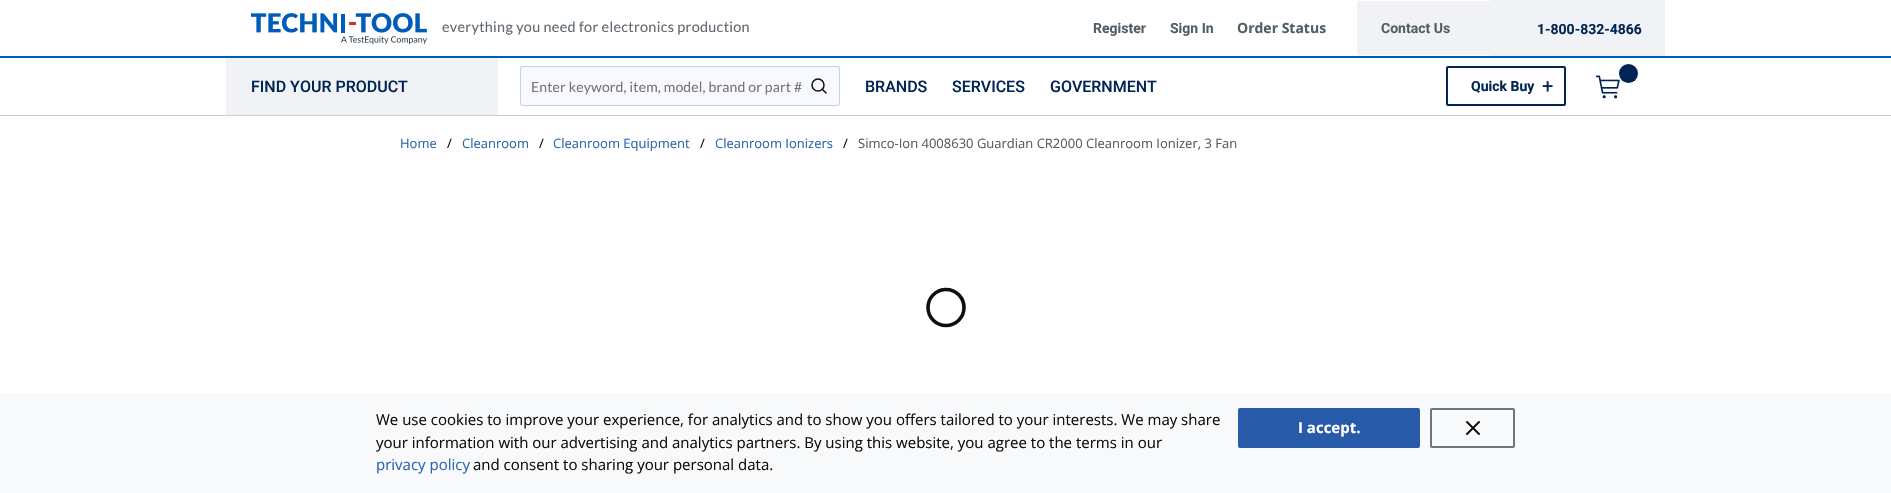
#include "include/core/SkBlurTypes.h"
#include "include/core/SkCanvas.h"
#include "include/core/SkData.h"
#include "include/core/SkFont.h"
#include "include/core/SkFontMgr.h"
#include "include/core/SkImage.h"
#include "include/core/SkMaskFilter.h"
#include "include/core/SkPaint.h"
#include "include/core/SkPathBuilder.h"
#include "include/core/SkTextBlob.h"
#include "include/effects/SkDashPathEffect.h"
#include "include/effects/SkGradientShader.h"
#include "include/utils/SkParsePath.h"

extern sk_sp<SkFontMgr> fontMgr;

void draw(SkCanvas* canvas) {
    SkPaint p;
    p.setAntiAlias(true);
    auto font = [&](const char* family, int weight, float size, bool italic = false) {
        SkFontStyle style(weight, SkFontStyle::kNormal_Width,
            italic ? SkFontStyle::kItalic_Slant : SkFontStyle::kUpright_Slant);
        SkFont result(fontMgr->matchFamilyStyle(family, style), size);
        result.setSubpixel(true);
        return result;
    };
    auto drawTracked = [&](const char* s, float x, float y, const SkFont& font, const SkPaint& ink, float letter, float word) {
        std::vector<SkGlyphID> glyphs(font.countText(s, strlen(s), SkTextEncoding::kUTF8));
        std::vector<float> xs(glyphs.size());
        font.textToGlyphs(s, strlen(s), SkTextEncoding::kUTF8, glyphs);
        font.getXPos(glyphs, xs, x);
        float extra = 0;
        for (size_t i = 0; i < glyphs.size(); i++) {
            xs[i] += extra;
            extra += letter + word * (glyphs[i] == font.unicharToGlyph(' '));
        }
        canvas->drawTextBlob(SkTextBlob::MakeFromPosHGlyphs(glyphs, xs, y, font), 0, 0, ink);
    };
    auto drawPhoto = [&](const char* path, float l, float t, float r, float b) {
        auto image = SkImages::DeferredFromEncodedData(SkData::MakeFromFileName(path));
        canvas->drawImageRect(image, SkRect::MakeLTRB(l, t, r, b), SkSamplingOptions());
    };
    canvas->clear(0xFFFFFFFF);
    p.setColor(0xFF005CB9);
    canvas->drawRect(SkRect::MakeLTRB(0, 56, 1891, 58), p);
    drawPhoto("media/1.png", 251, 13, 427, 45);
    auto font1 = font("Lato", 400, 14.4f);
    p.setColor(0xFF606970);
    drawTracked("everything you need for electronics production", 442, 32, font1, p, 0.3f, 0);
    auto font2 = font("Roboto", 700, 14);
    p.setColor(0xFF535E64);
    canvas->drawString("Register", 1093, 33, font2, p);
    canvas->drawString("Sign In", 1170, 33, font2, p);
    auto font3 = font("Open Sans", 700, 14);
    canvas->drawString("Order Status", 1237, 33, font3, p);
    p.setColor(0xFFF0F2F5);
    canvas->drawRect(SkRect::MakeLTRB(1357, 1, 1490, 55), p);
    p.setColor(0xFF535E64);
    canvas->drawString("Contact Us", 1381, 33, font2, p);
    p.setColor(0xFFF0F2F5);
    canvas->drawRect(SkRect::MakeLTRB(1490, 0, 1665, 56), p);
    p.setColor(0xFF002554);
    canvas->drawString("1-800-832-4866", 1537, 34, font2, p);
    p.setColor(0xFFC2D1D9);
    canvas->drawRect(SkRect::MakeLTRB(0, 115, 1891, 116), p);
    p.setColor(0xFFF0F2F5);
    canvas->drawRect(SkRect::MakeLTRB(226, 58, 498, 115), p);
    auto font4 = font("Roboto", 500, 16);
    p.setColor(0xFF002554);
    canvas->drawString("FIND YOUR PRODUCT", 251, 92, font4, p);
    p.setColor(0xFFF7F9FF);
    canvas->drawRoundRect(SkRect::MakeLTRB(520.5f, 66.5f, 839.5f, 105.5f), 1.5f, 1.5f, p);
    p.setStyle(SkPaint::kStroke_Style);
    p.setStrokeWidth(1);
    p.setColor(0xFFC2D3EA);
    canvas->drawRoundRect(SkRect::MakeLTRB(520.5f, 66.5f, 839.5f, 105.5f), 1.5f, 1.5f, p);
    auto font5 = font("Lato", 400, 14);
    p.setStyle(SkPaint::kFill_Style);
    p.setColor(0xFF757575);
    drawTracked("Enter keyword, item, model, brand or part #", 531, 92, font5, p, 0.15f, 0);
    p.setStyle(SkPaint::kStroke_Style);
    p.setStrokeWidth(1.5f);
    p.setColor(0xFF0F0F0F);
    canvas->drawCircle(818, 85, 6, p);
    p.setStrokeCap(SkPaint::kRound_Cap);
    p.setStrokeJoin(SkPaint::kRound_Join);
    canvas->drawPath(SkPathBuilder().moveTo(826, 93).lineTo(822.5f, 89.5f).detach(), p);
    p.setStyle(SkPaint::kFill_Style);
    p.setColor(0xFF002554);
    {
        const struct { const char* s; float x, y; } items[] = {
            {"BRANDS", 865, 92},
            {"SERVICES", 952, 92},
            {"GOVERNMENT", 1050, 92},
        };
        for (auto [s, x, y] : items) {
            canvas->drawString(s, x, y, font4, p);
        }
    }
    p.setStyle(SkPaint::kStroke_Style);
    p.setStrokeWidth(2);
    p.setStrokeCap(SkPaint::kButt_Cap);
    p.setStrokeJoin(SkPaint::kMiter_Join);
    canvas->drawRoundRect(SkRect::MakeLTRB(1447, 67, 1565, 105), 1, 1, p);
    p.setStyle(SkPaint::kFill_Style);
    canvas->drawString("Quick Buy", 1471, 91, font2, p);
    auto font6 = font("Roboto", 400, 20);
    canvas->drawString("+", 1542, 93, font6, p);
    drawPhoto("media/2.png", 1596, 75, 1620, 99);
    canvas->drawCircle(1628.5f, 73.5f, 9.5f, p);
    auto font7 = font("Open Sans", 400, 13);
    p.setColor(0xFF2E64B0);
    canvas->drawString("Home", 400, 148, font7, p);
    p.setColor(0xFF0F0F0F);
    canvas->drawString("/", 447, 148, font7, p);
    p.setColor(0xFF2E64B0);
    canvas->drawString("Cleanroom", 462, 148, font7, p);
    p.setColor(0xFF0F0F0F);
    canvas->drawString("/", 539, 148, font7, p);
    p.setColor(0xFF2E64B0);
    canvas->drawString("Cleanroom Equipment", 553, 148, font7, p);
    p.setColor(0xFF0F0F0F);
    canvas->drawString("/", 700, 148, font7, p);
    p.setColor(0xFF2E64B0);
    canvas->drawString("Cleanroom Ionizers", 715, 148, font7, p);
    p.setColor(0xFF0F0F0F);
    canvas->drawString("/", 843, 148, font7, p);
    p.setColor(0xFF535E64);
    canvas->drawString("Simco-Ion 4008630 Guardian CR2000 Cleanroom Ionizer, 3 Fan", 858, 148, font7, p);
    p.setStyle(SkPaint::kStroke_Style);
    p.setStrokeWidth(3.6f);
    p.setStrokeCap(SkPaint::kRound_Cap);
    p.setColor(0xFF0F0F0F);
    canvas->drawPath(SkPathBuilder().moveTo(946, 289.5f).cubicTo(956, 289.5f, 964, 297.5f, 964, 307.5f).cubicTo(964, 317.5f, 956, 325.5f, 946, 325.5f).cubicTo(936, 325.5f, 928, 317.5f, 928, 307.5f).cubicTo(928, 298, 935.5f, 290, 945, 289.5f).detach(), p);
    p.setStyle(SkPaint::kFill_Style);
    p.setColor(0xFFF8F9FA);
    canvas->drawRect(SkRect::MakeLTRB(0, 393, 1891, 493), p);
    auto font8 = font("Open Sans", 400, 15);
    p.setColor(0xFF0F0F0F);
    canvas->drawString("We use cookies to improve your experience, for analytics and to show you offers tailored to your interests. We may share", 376, 425, font8, p);
    canvas->drawString("your information with our advertising and analytics partners. By using this website, you agree to the terms in our", 376, 448, font8, p);
    p.setColor(0xFF2E64B0);
    canvas->drawString("privacy policy", 376, 470, font8, p);
    p.setColor(0xFF0F0F0F);
    canvas->drawString("and consent to sharing your personal data.", 473, 470, font8, p);
    p.setColor(0xFF275AA8);
    canvas->drawRoundRect(SkRect::MakeLTRB(1239, 409, 1419, 447), 1, 1, p);
    p.setStyle(SkPaint::kStroke_Style);
    p.setStrokeWidth(2);
    p.setStrokeCap(SkPaint::kButt_Cap);
    canvas->drawRoundRect(SkRect::MakeLTRB(1239, 409, 1419, 447), 1, 1, p);
    auto font9 = font("Open Sans", 700, 15);
    p.setStyle(SkPaint::kFill_Style);
    p.setColor(0xFFFFFFFF);
    canvas->drawString("I accept.", 1298, 433, font9, p);
    p.setStyle(SkPaint::kStroke_Style);
    p.setColor(0xFF6C757D);
    canvas->drawRoundRect(SkRect::MakeLTRB(1431, 409, 1514, 447), 1, 1, p);
    p.setStrokeCap(SkPaint::kRound_Cap);
    p.setStrokeJoin(SkPaint::kRound_Join);
    p.setColor(0xFF0F0F0F);
    canvas->drawPath(SkPathBuilder().moveTo(1479, 422).lineTo(1467, 434).moveTo(1467, 422).lineTo(1479, 434).detach(), p);
}
